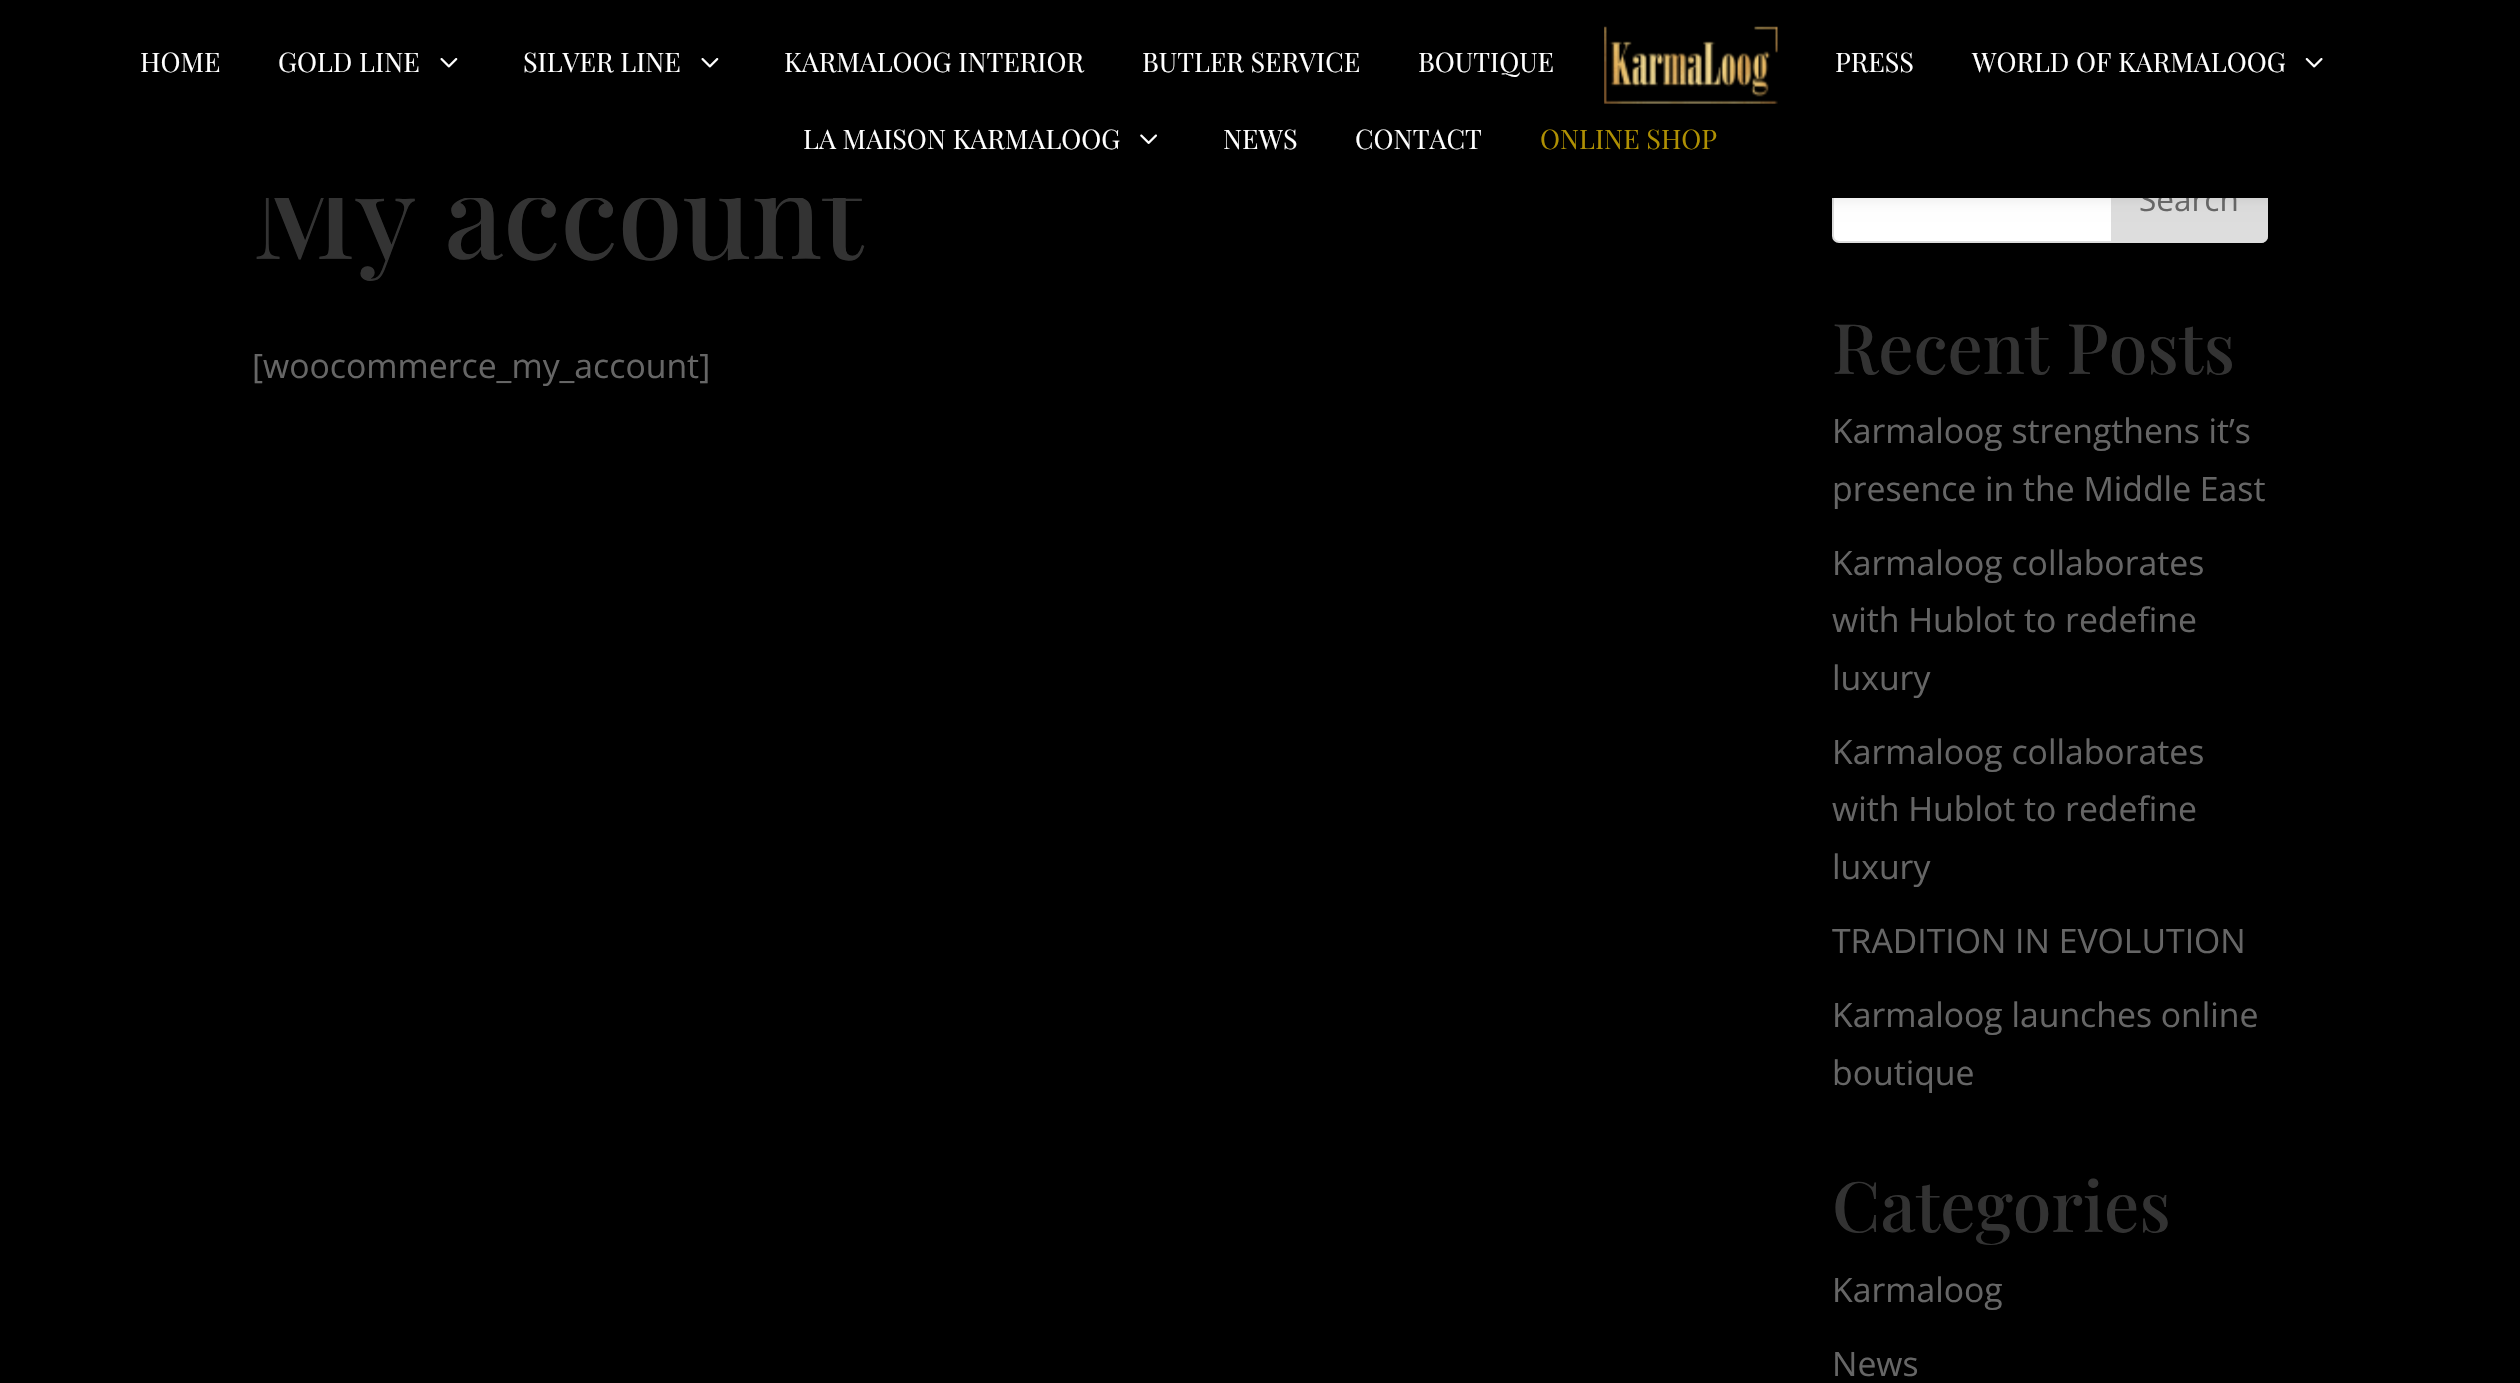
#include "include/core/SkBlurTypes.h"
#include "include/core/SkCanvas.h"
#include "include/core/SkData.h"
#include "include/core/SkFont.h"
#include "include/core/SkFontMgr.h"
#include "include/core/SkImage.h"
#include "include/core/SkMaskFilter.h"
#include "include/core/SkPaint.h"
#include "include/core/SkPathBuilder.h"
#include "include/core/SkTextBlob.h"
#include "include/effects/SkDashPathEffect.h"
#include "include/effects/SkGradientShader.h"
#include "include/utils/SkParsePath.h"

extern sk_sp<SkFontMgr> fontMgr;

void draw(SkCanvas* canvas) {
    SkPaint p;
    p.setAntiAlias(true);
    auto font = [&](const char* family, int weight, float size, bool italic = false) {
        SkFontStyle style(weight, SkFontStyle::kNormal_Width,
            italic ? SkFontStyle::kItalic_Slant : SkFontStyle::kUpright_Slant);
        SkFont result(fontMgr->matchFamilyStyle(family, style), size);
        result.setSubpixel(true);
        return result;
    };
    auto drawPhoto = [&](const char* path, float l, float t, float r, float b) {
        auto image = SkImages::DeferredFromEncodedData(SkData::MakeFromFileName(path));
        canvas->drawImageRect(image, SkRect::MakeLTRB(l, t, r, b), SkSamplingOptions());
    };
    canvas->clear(0xFF000000);
    p.setColor(0xFFFFFFFF);
    canvas->drawRoundRect(SkRect::MakeLTRB(1833, 154, 2267, 242), 6, 6, p);
    p.setStyle(SkPaint::kStroke_Style);
    p.setStrokeWidth(2);
    p.setColor(0xFFDDDDDD);
    canvas->drawRoundRect(SkRect::MakeLTRB(1833, 154, 2267, 242), 6, 6, p);
    p.setStyle(SkPaint::kFill_Style);
    canvas->drawPath(SkPathBuilder().moveTo(2112, 154).lineTo(2261, 154).cubicTo(2264.5f, 154, 2267, 156.5f, 2267, 160).lineTo(2267, 236).cubicTo(2267, 239.5f, 2264.5f, 242, 2261, 242).lineTo(2112, 242).close().detach(), p);
    p.setStyle(SkPaint::kStroke_Style);
    canvas->drawPath(SkPathBuilder().moveTo(2112, 154).lineTo(2261, 154).cubicTo(2264.5f, 154, 2267, 156.5f, 2267, 160).lineTo(2267, 236).cubicTo(2267, 239.5f, 2264.5f, 242, 2261, 242).lineTo(2112, 242).close().detach(), p);
    p.setStyle(SkPaint::kFill_Style);
    p.setColor(0x1A000000);
    p.setMaskFilter(SkMaskFilter::MakeBlur(kNormal_SkBlurStyle, 8));
    canvas->drawRect(SkRect::MakeLTRB(0, 0, 2520, 198), p);
    p.setMaskFilter(nullptr);
    auto font1 = font("Playfair Display", 500, 117);
    p.setColor(0xFF333333);
    canvas->drawString("My account", 252, 259, font1, p);
    auto font2 = font("Open Sans", 400, 31.5f);
    p.setColor(0xFF666666);
    canvas->drawString("Search", 2139, 211, font2, p);
    p.setColor(0xFF000000);
    canvas->drawRect(SkRect::MakeLTRB(256, 153, 2268, 198), p);
    auto font3 = font("Playfair Display", 400, 27);
    p.setColor(0xFFFFFFFF);
    canvas->drawString("HOME", 140, 72, font3, p);
    canvas->drawString("GOLD LINE", 278, 72, font3, p);
    drawPhoto("media/1.png", 440, 58, 458, 68);
    canvas->drawString("SILVER LINE", 523, 72, font3, p);
    drawPhoto("media/1.png", 701, 58, 719, 68);
    {
        const struct { const char* s; float x, y; } items[] = {
            {"KARMALOOG INTERIOR", 784, 72},
            {"BUTLER SERVICE", 1142, 72},
            {"BOUTIQUE", 1418, 72},
        };
        for (auto [s, x, y] : items) {
            canvas->drawString(s, x, y, font3, p);
        }
    }
    drawPhoto("media/2.png", 1604, 26, 1778, 104);
    canvas->drawString("PRESS", 1835, 72, font3, p);
    canvas->drawString("WORLD OF KARMALOOG", 1972, 72, font3, p);
    drawPhoto("media/3.png", 2305, 58, 2323, 68);
    canvas->drawString("LA MAISON KARMALOOG", 803, 149, font3, p);
    drawPhoto("media/4.png", 1140, 134, 1157, 144);
    canvas->drawString("NEWS", 1223, 149, font3, p);
    canvas->drawString("CONTACT", 1355, 149, font3, p);
    p.setColor(0xFFAF9003);
    canvas->drawString("ONLINE SHOP", 1540, 149, font3, p);
    auto font4 = font("Open Sans", 400, 33.75f);
    p.setColor(0xFF666666);
    canvas->drawString("[woocommerce_my_account]", 252, 378, font4, p);
    auto font5 = font("Playfair Display", 500, 69.75f);
    p.setColor(0xFF333333);
    canvas->drawString("Recent Posts", 1832, 374, font5, p);
    p.setColor(0xFF666666);
    {
        const struct { const char* s; float x, y; } items[] = {
            {"Karmaloog strengthens it’s", 1832, 443},
            {"presence in the Middle East", 1832, 501},
            {"Karmaloog collaborates", 1832, 575},
            {"with Hublot to redefine", 1832, 632},
            {"luxury", 1832, 690},
            {"Karmaloog collaborates", 1832, 764},
            {"with Hublot to redefine", 1832, 821},
            {"luxury", 1832, 879},
            {"TRADITION IN EVOLUTION", 1832, 953},
            {"Karmaloog launches online", 1832, 1027},
            {"boutique", 1832, 1085},
        };
        for (auto [s, x, y] : items) {
            canvas->drawString(s, x, y, font4, p);
        }
    }
    p.setColor(0xFF333333);
    canvas->drawString("Categories", 1832, 1232, font5, p);
    p.setColor(0xFF666666);
    canvas->drawString("Karmaloog", 1832, 1302, font4, p);
    canvas->drawString("News", 1832, 1376, font4, p);
}
